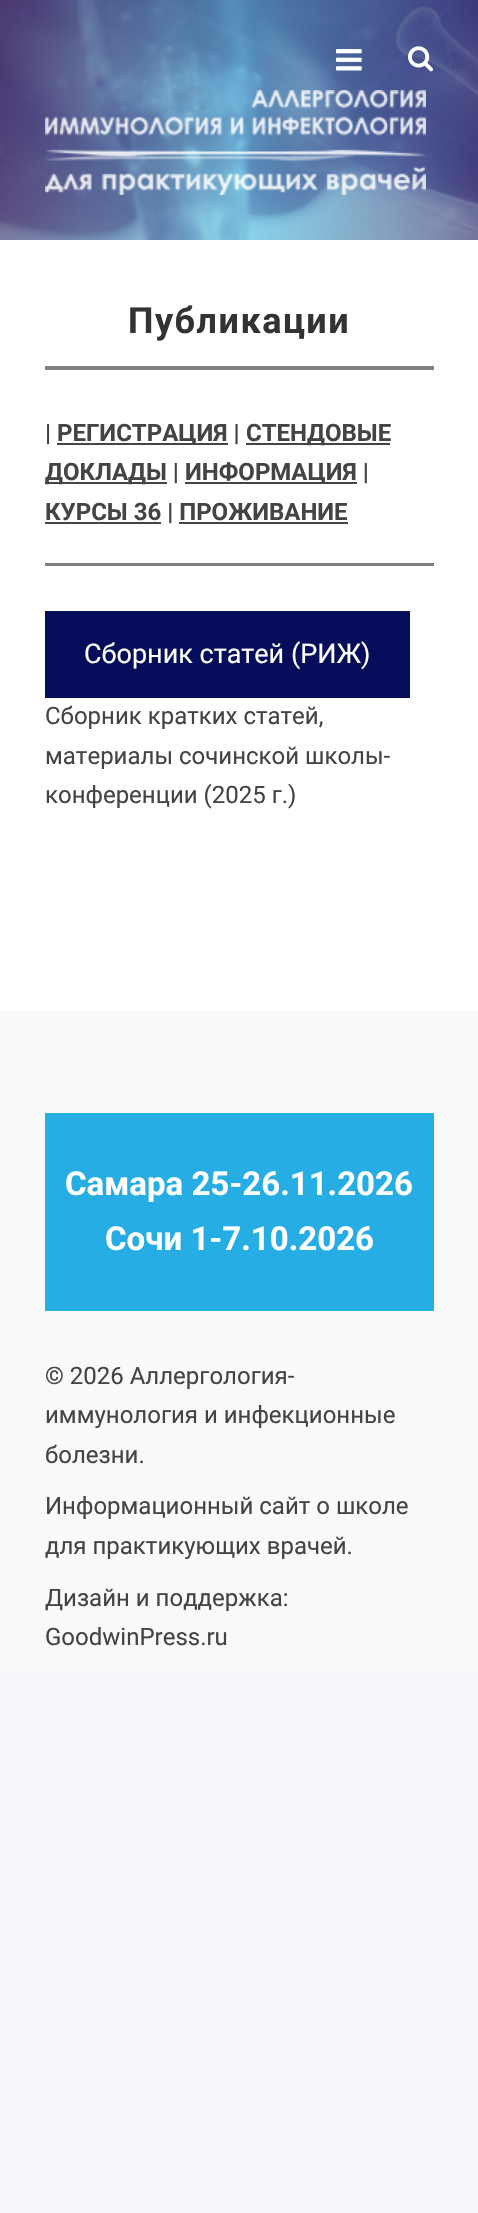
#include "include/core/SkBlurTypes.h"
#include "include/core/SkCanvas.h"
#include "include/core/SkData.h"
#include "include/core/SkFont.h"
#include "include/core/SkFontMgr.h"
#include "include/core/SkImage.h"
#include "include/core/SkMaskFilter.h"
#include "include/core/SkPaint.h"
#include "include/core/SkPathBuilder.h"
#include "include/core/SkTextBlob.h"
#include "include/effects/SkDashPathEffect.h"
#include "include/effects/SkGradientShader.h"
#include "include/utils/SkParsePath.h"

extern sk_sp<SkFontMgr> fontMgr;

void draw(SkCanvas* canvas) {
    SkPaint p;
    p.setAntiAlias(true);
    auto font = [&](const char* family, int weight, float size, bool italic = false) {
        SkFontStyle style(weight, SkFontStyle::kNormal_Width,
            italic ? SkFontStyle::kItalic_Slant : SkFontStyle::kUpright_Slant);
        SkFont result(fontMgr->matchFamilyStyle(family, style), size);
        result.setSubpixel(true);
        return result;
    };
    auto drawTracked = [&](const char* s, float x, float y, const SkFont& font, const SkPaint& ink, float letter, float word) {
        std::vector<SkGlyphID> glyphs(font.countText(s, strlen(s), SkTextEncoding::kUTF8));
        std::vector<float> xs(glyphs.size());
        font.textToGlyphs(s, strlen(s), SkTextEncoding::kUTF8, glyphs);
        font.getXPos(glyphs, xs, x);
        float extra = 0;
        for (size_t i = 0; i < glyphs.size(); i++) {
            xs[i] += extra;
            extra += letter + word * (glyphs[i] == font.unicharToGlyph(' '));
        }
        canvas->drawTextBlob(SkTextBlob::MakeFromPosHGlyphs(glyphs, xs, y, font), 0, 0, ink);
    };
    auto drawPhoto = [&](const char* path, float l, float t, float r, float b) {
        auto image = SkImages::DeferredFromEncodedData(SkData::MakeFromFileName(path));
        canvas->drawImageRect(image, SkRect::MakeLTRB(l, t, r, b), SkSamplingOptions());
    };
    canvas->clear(0xFFF6F7FB);
    p.setColor(0xFFFFFFFF);
    canvas->drawRect(SkRect::MakeLTRB(0, 240, 478, 1011), p);
    drawPhoto("media/1.png", 0, 0, 478, 240);
    drawPhoto("media/2.png", 336, 49, 362, 71);
    drawPhoto("media/3.png", 408, 46, 434, 72);
    drawPhoto("media/4.png", 45, 90, 426, 195);
    auto font1 = font("Roboto", 700, 36);
    p.setColor(0xFF333333);
    drawTracked("Публикации", 128, 333, font1, p, 1.5f, 0);
    p.setColor(0xFF808080);
    canvas->drawRect(SkRect::MakeLTRB(45, 366, 434, 370), p);
    auto font2 = font("Roboto", 700, 24);
    p.setColor(0xFF444444);
    canvas->drawString("|", 45, 441, font2, p);
    canvas->drawRect(SkRect::MakeLTRB(57, 443, 228, 445), p);
    canvas->drawString("РЕГИСТРАЦИЯ |", 57, 441, font2, p);
    canvas->drawRect(SkRect::MakeLTRB(246, 443, 390, 445), p);
    canvas->drawString("СТЕНДОВЫЕ", 246, 441, font2, p);
    canvas->drawRect(SkRect::MakeLTRB(45, 482, 167, 484), p);
    canvas->drawString("ДОКЛАДЫ |", 45, 480, font2, p);
    canvas->drawRect(SkRect::MakeLTRB(185, 482, 357, 484), p);
    canvas->drawString("ИНФОРМАЦИЯ |", 185, 480, font2, p);
    canvas->drawRect(SkRect::MakeLTRB(45, 522, 161, 524), p);
    canvas->drawString("КУРСЫ 36 | ПРОЖИВАНИЕ", 45, 520, font2, p);
    {
        const struct { float l, t, r, b; SkColor color; } items[] = {
            {179, 522, 348, 524, 0xFF444444},
            {45, 563, 434, 566, 0xFF808080},
            {45, 611, 410, 698, 0xFF060D5B},
        };
        for (auto [l, t, r, b, color] : items) {
            p.setColor(color);
            canvas->drawRect(SkRect::MakeLTRB(l, t, r, b), p);
        }
    }
    auto font3 = font("Roboto", 400, 27);
    p.setColor(0xFFFFFFFF);
    canvas->drawString("Сборник статей (РИЖ)", 84, 663, font3, p);
    auto font4 = font("Roboto", 400, 24);
    p.setColor(0xFF444444);
    {
        const struct { const char* s; float x, y; } items[] = {
            {"Сборник кратких статей,", 45, 724},
            {"материалы сочинской школы-", 45, 764},
            {"конференции (2025 г.)", 45, 803},
        };
        for (auto [s, x, y] : items) {
            canvas->drawString(s, x, y, font4, p);
        }
    }
    p.setColor(0xFFF9F9F9);
    canvas->drawRect(SkRect::MakeLTRB(0, 1011, 478, 1670), p);
    p.setColor(0xFF26ADE4);
    canvas->drawRect(SkRect::MakeLTRB(45, 1113, 434, 1311), p);
    auto font5 = font("Roboto", 700, 33);
    p.setColor(0xFFFFFFFF);
    canvas->drawString("Самара 25-26.11.2026", 65, 1195, font5, p);
    canvas->drawString("Сочи 1-7.10.2026", 105, 1250, font5, p);
    p.setColor(0xFF444444);
    {
        const struct { const char* s; float x, y; } items[] = {
            {"© 2026 Аллергология-", 45, 1384},
            {"иммунология и инфекционные", 45, 1423},
            {"болезни.", 45, 1463},
            {"Информационный сайт о школе", 45, 1514},
            {"для практикующих врачей.", 45, 1554},
            {"Дизайн и поддержка:", 45, 1606},
            {"GoodwinPress.ru", 45, 1645},
        };
        for (auto [s, x, y] : items) {
            canvas->drawString(s, x, y, font4, p);
        }
    }
}
